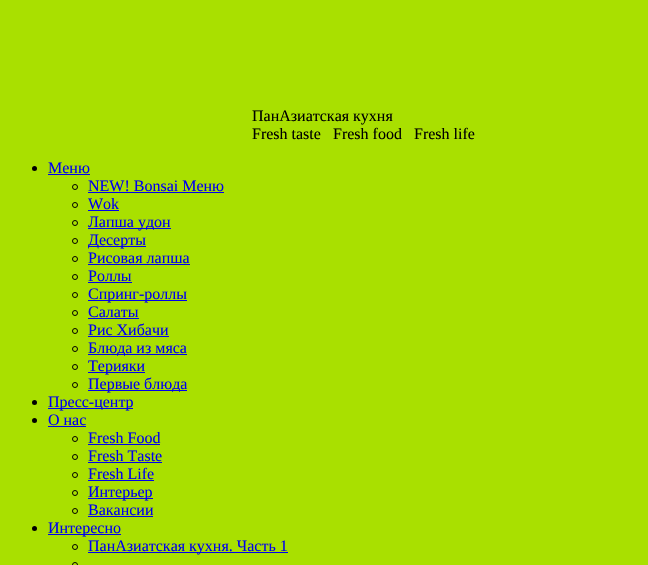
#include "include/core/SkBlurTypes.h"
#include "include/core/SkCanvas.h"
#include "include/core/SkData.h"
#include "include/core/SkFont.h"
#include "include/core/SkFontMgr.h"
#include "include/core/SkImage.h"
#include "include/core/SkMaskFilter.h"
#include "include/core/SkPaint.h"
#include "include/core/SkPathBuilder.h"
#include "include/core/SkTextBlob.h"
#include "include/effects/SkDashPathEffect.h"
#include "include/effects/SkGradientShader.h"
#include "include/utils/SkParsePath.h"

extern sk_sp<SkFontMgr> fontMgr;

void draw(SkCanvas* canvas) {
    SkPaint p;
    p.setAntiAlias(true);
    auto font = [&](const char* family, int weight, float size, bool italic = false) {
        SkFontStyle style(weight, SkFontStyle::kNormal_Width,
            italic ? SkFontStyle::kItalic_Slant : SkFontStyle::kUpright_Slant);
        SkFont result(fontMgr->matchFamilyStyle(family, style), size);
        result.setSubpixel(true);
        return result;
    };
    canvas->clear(0xFFA9E000);
    auto font1 = font("Liberation Serif", 400, 16);
    p.setColor(0xFF000000);
    {
        const struct { const char* s; float x, y; } items[] = {
            {"ПанАзиатская кухня", 252, 121},
            {"Fresh taste", 252, 139},
            {"Fresh food", 333, 139},
            {"Fresh life", 414, 139},
        };
        for (auto [s, x, y] : items) {
            canvas->drawString(s, x, y, font1, p);
        }
    }
    canvas->drawCircle(34.5f, 168.5f, 2.5f, p);
    p.setColor(0xFF0000EE);
    canvas->drawString("Меню", 48, 173, font1, p);
    canvas->drawRect(SkRect::MakeLTRB(48, 174, 90, 175), p);
    p.setStyle(SkPaint::kStroke_Style);
    p.setStrokeWidth(1);
    p.setColor(0xFF000000);
    canvas->drawCircle(75, 187, 2.5f, p);
    p.setStyle(SkPaint::kFill_Style);
    p.setColor(0xFF0000EE);
    canvas->drawString("NEW! Bonsai Меню", 88, 191, font1, p);
    canvas->drawRect(SkRect::MakeLTRB(88, 192, 224, 193), p);
    p.setStyle(SkPaint::kStroke_Style);
    p.setColor(0xFF000000);
    canvas->drawCircle(75, 205, 2.5f, p);
    p.setStyle(SkPaint::kFill_Style);
    p.setColor(0xFF0000EE);
    canvas->drawString("Wok", 88, 209, font1, p);
    canvas->drawRect(SkRect::MakeLTRB(88, 210, 119, 211), p);
    p.setStyle(SkPaint::kStroke_Style);
    p.setColor(0xFF000000);
    canvas->drawCircle(75, 223, 2.5f, p);
    p.setStyle(SkPaint::kFill_Style);
    p.setColor(0xFF0000EE);
    canvas->drawRect(SkRect::MakeLTRB(88, 228, 171, 229), p);
    canvas->drawString("Лапша удон", 88, 227, font1, p);
    p.setStyle(SkPaint::kStroke_Style);
    p.setColor(0xFF000000);
    canvas->drawCircle(75, 241, 2.5f, p);
    p.setStyle(SkPaint::kFill_Style);
    p.setColor(0xFF0000EE);
    canvas->drawRect(SkRect::MakeLTRB(88, 246, 146, 247), p);
    canvas->drawString("Десерты", 88, 245, font1, p);
    p.setStyle(SkPaint::kStroke_Style);
    p.setColor(0xFF000000);
    canvas->drawCircle(75, 259, 2.5f, p);
    p.setStyle(SkPaint::kFill_Style);
    p.setColor(0xFF0000EE);
    canvas->drawString("Рисовая лапша", 88, 263, font1, p);
    canvas->drawRect(SkRect::MakeLTRB(88, 264, 190, 265), p);
    p.setStyle(SkPaint::kStroke_Style);
    p.setColor(0xFF000000);
    canvas->drawCircle(75, 277, 2.5f, p);
    p.setStyle(SkPaint::kFill_Style);
    p.setColor(0xFF0000EE);
    canvas->drawString("Роллы", 88, 281, font1, p);
    canvas->drawRect(SkRect::MakeLTRB(88, 282, 132, 283), p);
    p.setStyle(SkPaint::kStroke_Style);
    p.setColor(0xFF000000);
    canvas->drawCircle(75, 295, 2.5f, p);
    p.setStyle(SkPaint::kFill_Style);
    p.setColor(0xFF0000EE);
    canvas->drawRect(SkRect::MakeLTRB(88, 300, 187, 301), p);
    canvas->drawString("Спринг-роллы", 88, 299, font1, p);
    p.setStyle(SkPaint::kStroke_Style);
    p.setColor(0xFF000000);
    canvas->drawCircle(75, 313, 2.5f, p);
    p.setStyle(SkPaint::kFill_Style);
    p.setColor(0xFF0000EE);
    canvas->drawString("Салаты", 88, 317, font1, p);
    canvas->drawRect(SkRect::MakeLTRB(88, 318, 139, 319), p);
    p.setStyle(SkPaint::kStroke_Style);
    p.setColor(0xFF000000);
    canvas->drawCircle(75, 331, 2.5f, p);
    p.setStyle(SkPaint::kFill_Style);
    p.setColor(0xFF0000EE);
    canvas->drawString("Рис Хибачи", 88, 335, font1, p);
    canvas->drawRect(SkRect::MakeLTRB(88, 336, 169, 337), p);
    p.setStyle(SkPaint::kStroke_Style);
    p.setColor(0xFF000000);
    canvas->drawCircle(75, 349, 2.5f, p);
    p.setStyle(SkPaint::kFill_Style);
    p.setColor(0xFF0000EE);
    canvas->drawRect(SkRect::MakeLTRB(88, 354, 187, 355), p);
    canvas->drawString("Блюда из мяса", 88, 353, font1, p);
    p.setStyle(SkPaint::kStroke_Style);
    p.setColor(0xFF000000);
    canvas->drawCircle(75, 367, 2.5f, p);
    p.setStyle(SkPaint::kFill_Style);
    p.setColor(0xFF0000EE);
    canvas->drawRect(SkRect::MakeLTRB(88, 372, 145, 373), p);
    canvas->drawString("Терияки", 88, 371, font1, p);
    p.setStyle(SkPaint::kStroke_Style);
    p.setColor(0xFF000000);
    canvas->drawCircle(75, 385, 2.5f, p);
    p.setStyle(SkPaint::kFill_Style);
    p.setColor(0xFF0000EE);
    canvas->drawRect(SkRect::MakeLTRB(88, 390, 187, 391), p);
    canvas->drawString("Первые блюда", 88, 389, font1, p);
    p.setColor(0xFF000000);
    canvas->drawCircle(34.5f, 402.5f, 2.5f, p);
    p.setColor(0xFF0000EE);
    canvas->drawRect(SkRect::MakeLTRB(48, 408, 133, 409), p);
    canvas->drawString("Пресс-центр", 48, 407, font1, p);
    p.setColor(0xFF000000);
    canvas->drawCircle(34.5f, 420.5f, 2.5f, p);
    p.setColor(0xFF0000EE);
    canvas->drawString("О нас", 48, 425, font1, p);
    canvas->drawRect(SkRect::MakeLTRB(48, 426, 86, 427), p);
    p.setStyle(SkPaint::kStroke_Style);
    p.setColor(0xFF000000);
    canvas->drawCircle(75, 439, 2.5f, p);
    p.setStyle(SkPaint::kFill_Style);
    p.setColor(0xFF0000EE);
    canvas->drawString("Fresh Food", 88, 443, font1, p);
    canvas->drawRect(SkRect::MakeLTRB(88, 444, 160, 445), p);
    p.setStyle(SkPaint::kStroke_Style);
    p.setColor(0xFF000000);
    canvas->drawCircle(75, 457, 2.5f, p);
    p.setStyle(SkPaint::kFill_Style);
    p.setColor(0xFF0000EE);
    canvas->drawString("Fresh Taste", 88, 461, font1, p);
    canvas->drawRect(SkRect::MakeLTRB(88, 462, 162, 463), p);
    p.setStyle(SkPaint::kStroke_Style);
    p.setColor(0xFF000000);
    canvas->drawCircle(75, 475, 2.5f, p);
    p.setStyle(SkPaint::kFill_Style);
    p.setColor(0xFF0000EE);
    canvas->drawString("Fresh Life", 88, 479, font1, p);
    canvas->drawRect(SkRect::MakeLTRB(88, 480, 154, 481), p);
    p.setStyle(SkPaint::kStroke_Style);
    p.setColor(0xFF000000);
    canvas->drawCircle(75, 493, 2.5f, p);
    p.setStyle(SkPaint::kFill_Style);
    p.setColor(0xFF0000EE);
    canvas->drawRect(SkRect::MakeLTRB(88, 498, 153, 499), p);
    canvas->drawString("Интерьер", 88, 497, font1, p);
    p.setStyle(SkPaint::kStroke_Style);
    p.setColor(0xFF000000);
    canvas->drawCircle(75, 511, 2.5f, p);
    p.setStyle(SkPaint::kFill_Style);
    p.setColor(0xFF0000EE);
    canvas->drawString("Вакансии", 88, 515, font1, p);
    canvas->drawRect(SkRect::MakeLTRB(88, 516, 153, 517), p);
    p.setColor(0xFF000000);
    canvas->drawCircle(34.5f, 528.5f, 2.5f, p);
    p.setColor(0xFF0000EE);
    canvas->drawRect(SkRect::MakeLTRB(48, 534, 121, 535), p);
    canvas->drawString("Интересно", 48, 533, font1, p);
    p.setStyle(SkPaint::kStroke_Style);
    p.setColor(0xFF000000);
    canvas->drawCircle(75, 547, 2.5f, p);
    p.setStyle(SkPaint::kFill_Style);
    p.setColor(0xFF0000EE);
    canvas->drawRect(SkRect::MakeLTRB(88, 552, 288, 553), p);
    canvas->drawString("ПанАзиатская кухня. Часть 1", 88, 551, font1, p);
    p.setStyle(SkPaint::kStroke_Style);
    p.setColor(0xFF000000);
    canvas->drawCircle(75, 565, 2.5f, p);
}
